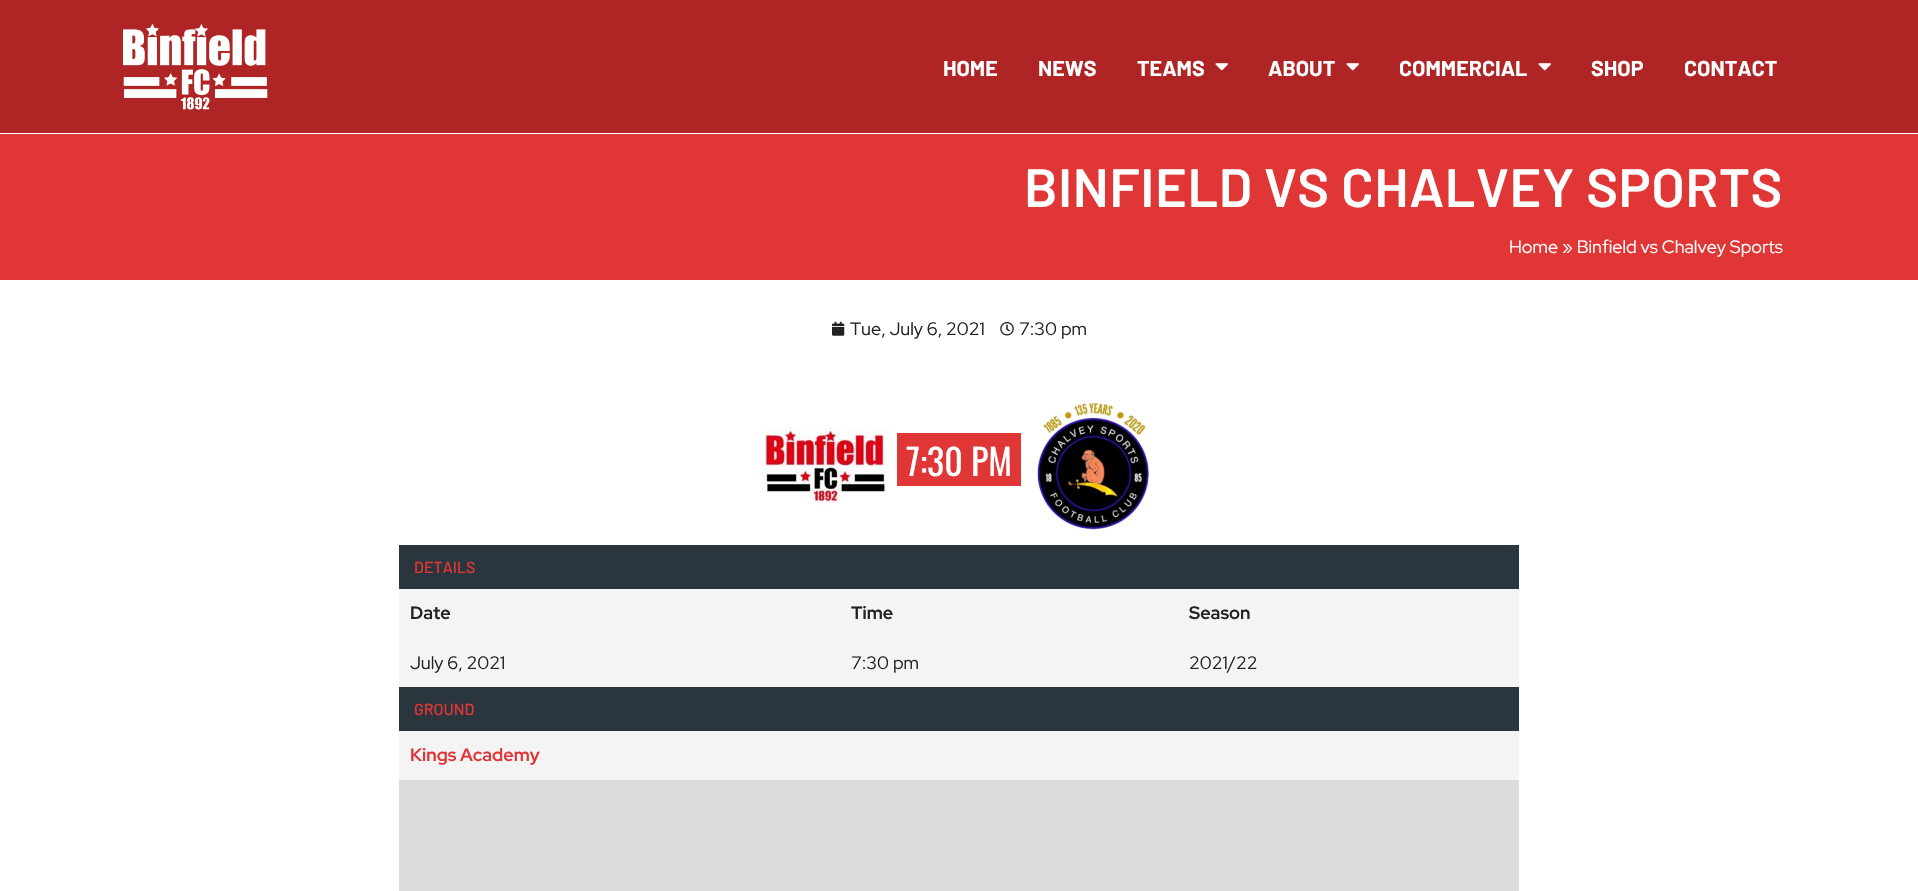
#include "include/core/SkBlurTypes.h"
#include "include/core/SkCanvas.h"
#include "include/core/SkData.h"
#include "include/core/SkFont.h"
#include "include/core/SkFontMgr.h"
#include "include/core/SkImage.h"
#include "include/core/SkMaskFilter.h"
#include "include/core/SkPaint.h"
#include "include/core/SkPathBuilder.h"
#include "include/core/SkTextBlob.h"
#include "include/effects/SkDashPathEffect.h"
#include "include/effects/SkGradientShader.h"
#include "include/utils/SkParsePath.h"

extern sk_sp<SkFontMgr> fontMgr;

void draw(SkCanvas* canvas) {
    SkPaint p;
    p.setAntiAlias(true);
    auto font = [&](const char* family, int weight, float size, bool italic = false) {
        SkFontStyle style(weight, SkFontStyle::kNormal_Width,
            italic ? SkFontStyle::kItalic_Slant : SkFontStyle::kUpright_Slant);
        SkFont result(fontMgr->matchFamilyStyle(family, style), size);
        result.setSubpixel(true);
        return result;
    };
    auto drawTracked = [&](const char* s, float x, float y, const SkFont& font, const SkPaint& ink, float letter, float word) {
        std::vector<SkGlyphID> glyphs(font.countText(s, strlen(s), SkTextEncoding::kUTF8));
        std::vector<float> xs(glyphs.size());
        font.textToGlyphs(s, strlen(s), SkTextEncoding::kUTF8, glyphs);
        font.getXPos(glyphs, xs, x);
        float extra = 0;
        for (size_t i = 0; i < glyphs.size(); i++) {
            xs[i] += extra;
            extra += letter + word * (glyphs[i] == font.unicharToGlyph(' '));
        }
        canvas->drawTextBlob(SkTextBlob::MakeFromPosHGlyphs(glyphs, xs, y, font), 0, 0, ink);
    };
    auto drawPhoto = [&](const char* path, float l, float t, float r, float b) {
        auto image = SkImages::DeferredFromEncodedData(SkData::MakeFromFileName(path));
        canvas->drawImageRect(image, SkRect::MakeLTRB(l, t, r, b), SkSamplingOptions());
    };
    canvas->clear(0xFFFFFFFF);
    p.setColor(0xFFAF2424);
    canvas->drawRect(SkRect::MakeLTRB(0, 0, 1918, 133), p);
    drawPhoto("media/1.png", 123, 23, 268, 110);
    auto font1 = font("Barlow", 700, 21.5f);
    p.setColor(0xFFFFFFFF);
    {
        const struct { const char* s; float x, y; } items[] = {
            {"HOME", 943, 76},
            {"NEWS", 1038, 76},
            {"TEAMS", 1137, 76},
        };
        for (auto [s, x, y] : items) {
            canvas->drawString(s, x, y, font1, p);
        }
    }
    drawPhoto("media/2.png", 1215, 63, 1228, 71);
    canvas->drawString("ABOUT", 1268, 76, font1, p);
    drawPhoto("media/2.png", 1346, 63, 1359, 71);
    canvas->drawString("COMMERCIAL", 1399, 76, font1, p);
    drawPhoto("media/2.png", 1538, 63, 1551, 71);
    canvas->drawString("SHOP", 1591, 76, font1, p);
    canvas->drawString("CONTACT", 1684, 76, font1, p);
    p.setColor(0xFFE13636);
    canvas->drawRect(SkRect::MakeLTRB(0, 134, 1918, 280), p);
    auto font2 = font("Barlow", 600, 54);
    p.setColor(0xFFFFFFFF);
    drawTracked("BINFIELD VS CHALVEY SPORTS", 1024, 207, font2, p, 0.5f, 0);
    auto font3 = font("Red Hat Display", 400, 18);
    canvas->drawString("Home » Binfield vs Chalvey Sports", 1509, 253, font3, p);
    drawPhoto("media/3.png", 832, 321, 845, 336);
    p.setColor(0xFF222222);
    canvas->drawString("Tue, July 6, 2021", 850, 335, font3, p);
    drawPhoto("media/4.png", 1000, 322, 1014, 336);
    canvas->drawString("7:30 pm", 1019, 335, font3, p);
    drawPhoto("media/5.png", 761, 428, 889, 505);
    p.setColor(0xFFE13636);
    canvas->drawRect(SkRect::MakeLTRB(897, 433, 1021, 486), p);
    auto font4 = font("Oswald", 400, 36);
    p.setColor(0xFFFFFFFF);
    canvas->drawString("7:30 PM", 906, 476, font4, p);
    drawPhoto("media/6.png", 1037, 402, 1150, 530);
    p.setColor(0xFF2B353E);
    canvas->drawRect(SkRect::MakeLTRB(399, 545, 1519, 589), p);
    auto font5 = font("Barlow", 500, 16);
    p.setColor(0xFFE13636);
    canvas->drawString("DETAILS", 414, 573, font5, p);
    p.setColor(0xFFF4F4F4);
    canvas->drawRect(SkRect::MakeLTRB(399, 589, 1519, 687), p);
    auto font6 = font("Red Hat Display", 700, 18);
    p.setColor(0xFF222222);
    {
        const struct { const char* s; float x, y; } items[] = {
            {"Date", 410, 619},
            {"Time", 851, 619},
            {"Season", 1189, 619},
        };
        for (auto [s, x, y] : items) {
            canvas->drawString(s, x, y, font6, p);
        }
    }
    {
        const struct { const char* s; float x, y; } items[] = {
            {"July 6, 2021", 410, 669},
            {"7:30 pm", 851, 669},
            {"2021/22", 1189, 669},
        };
        for (auto [s, x, y] : items) {
            canvas->drawString(s, x, y, font3, p);
        }
    }
    p.setColor(0xFF2B353E);
    canvas->drawRect(SkRect::MakeLTRB(399, 687, 1519, 731), p);
    p.setColor(0xFFE13636);
    canvas->drawString("GROUND", 414, 715, font5, p);
    p.setColor(0xFFF4F4F4);
    canvas->drawRect(SkRect::MakeLTRB(399, 731, 1519, 780), p);
    p.setColor(0xFFE13636);
    canvas->drawString("Kings Academy", 410, 761, font6, p);
    p.setColor(0xFFDDDDDD);
    canvas->drawRect(SkRect::MakeLTRB(399, 780, 1519, 891), p);
}
